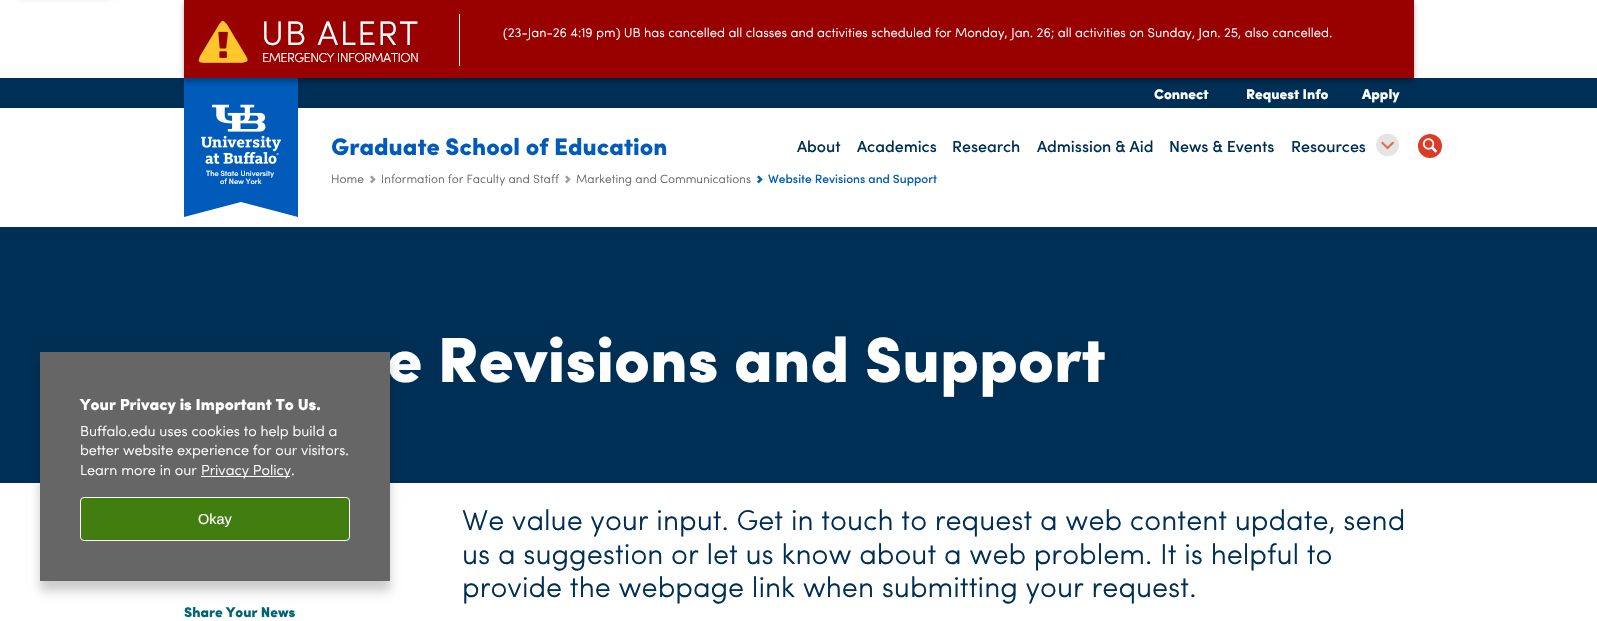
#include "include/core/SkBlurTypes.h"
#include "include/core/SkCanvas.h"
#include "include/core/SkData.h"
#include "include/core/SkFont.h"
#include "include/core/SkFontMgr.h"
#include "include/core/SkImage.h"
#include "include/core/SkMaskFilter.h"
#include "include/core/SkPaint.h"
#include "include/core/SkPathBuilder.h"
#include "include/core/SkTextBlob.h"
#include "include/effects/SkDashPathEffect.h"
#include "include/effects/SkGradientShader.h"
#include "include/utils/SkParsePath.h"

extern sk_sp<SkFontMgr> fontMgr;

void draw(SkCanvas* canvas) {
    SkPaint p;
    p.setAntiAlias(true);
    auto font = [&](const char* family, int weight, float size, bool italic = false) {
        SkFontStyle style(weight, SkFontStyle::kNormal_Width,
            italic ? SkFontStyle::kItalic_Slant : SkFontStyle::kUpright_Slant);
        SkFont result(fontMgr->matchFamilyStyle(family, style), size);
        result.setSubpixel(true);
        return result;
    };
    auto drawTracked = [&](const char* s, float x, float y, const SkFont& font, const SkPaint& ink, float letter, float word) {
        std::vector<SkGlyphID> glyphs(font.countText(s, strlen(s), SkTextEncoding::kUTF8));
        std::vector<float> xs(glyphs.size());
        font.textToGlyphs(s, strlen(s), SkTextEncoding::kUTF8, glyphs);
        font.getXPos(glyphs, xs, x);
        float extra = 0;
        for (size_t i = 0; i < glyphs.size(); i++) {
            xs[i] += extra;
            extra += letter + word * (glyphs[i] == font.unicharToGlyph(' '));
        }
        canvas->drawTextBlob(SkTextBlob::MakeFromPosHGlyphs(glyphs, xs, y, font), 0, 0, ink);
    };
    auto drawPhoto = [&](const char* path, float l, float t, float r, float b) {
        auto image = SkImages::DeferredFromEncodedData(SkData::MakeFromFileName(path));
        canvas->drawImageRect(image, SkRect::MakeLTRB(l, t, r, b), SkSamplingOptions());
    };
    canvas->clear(0xFFFFFFFF);
    p.setColor(0x80000000);
    p.setMaskFilter(SkMaskFilter::MakeBlur(kNormal_SkBlurStyle, 5));
    canvas->drawRect(SkRect::MakeLTRB(20, -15, 110, -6), p);
    p.setMaskFilter(nullptr);
    p.setColor(0xFF002F56);
    canvas->drawRect(SkRect::MakeLTRB(0, 78, 1597, 108), p);
    p.setColor(0xFF005BBB);
    canvas->drawRect(SkRect::MakeLTRB(184, 78, 298, 202), p);
    p.setColor(0x4D000000);
    p.setMaskFilter(SkMaskFilter::MakeBlur(kNormal_SkBlurStyle, 2.5f));
    canvas->drawRect(SkRect::MakeLTRB(184, 4, 1414, 82), p);
    p.setMaskFilter(nullptr);
    p.setColor(0xFF990000);
    canvas->drawRect(SkRect::MakeLTRB(184, 0, 1414, 78), p);
    drawPhoto("media/1.png", 198, 21, 248, 63);
    auto font1 = font("Sofia", 400, 34);
    p.setColor(0xFFFFFFFF);
    drawTracked("UB ALERT", 261, 45, font1, p, 1, 0);
    auto font2 = font("Sofia", 400, 13);
    drawTracked("EMERGENCY INFORMATION", 262, 62, font2, p, -0.6f, 0);
    canvas->drawRect(SkRect::MakeLTRB(459, 14, 460, 66), p);
    canvas->drawString("(23-Jan-26 4:19 pm) UB has cancelled all classes and activities scheduled for Monday, Jan. 26; all activities on Sunday, Jan. 25, also cancelled.", 503, 37, font2, p);
    auto font3 = font("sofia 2", 400, 14);
    {
        const struct { const char* s; float x, y; } items[] = {
            {"Connect", 1154, 99},
            {"Request Info", 1246, 99},
            {"Apply", 1362, 99},
        };
        for (auto [s, x, y] : items) {
            canvas->drawString(s, x, y, font3, p);
        }
    }
    auto font4 = font("sofia 2", 400, 24);
    p.setColor(0xFF005BBB);
    canvas->drawString("Graduate School of Education", 331, 155, font4, p);
    auto font5 = font("Sofia", 500, 16);
    p.setColor(0xFF002F56);
    {
        const struct { const char* s; float x, y; } items[] = {
            {"About", 797, 152},
            {"Academics", 857, 152},
            {"Research", 952, 152},
            {"Admission & Aid", 1037, 152},
            {"News & Events", 1169, 152},
            {"Resources", 1291, 152},
        };
        for (auto [s, x, y] : items) {
            canvas->drawString(s, x, y, font5, p);
        }
    }
    drawPhoto("media/2.png", 1376, 133, 1399, 157);
    p.setColor(0xFFDA3C28);
    canvas->drawCircle(1430, 146, 12, p);
    drawPhoto("media/3.png", 1422, 138, 1438, 153);
    drawPhoto("media/4.png", 201, 104, 281, 164);
    auto font6 = font("Sofia", 500, 7.5f);
    p.setColor(0xFFFFFFFF);
    canvas->drawString("The State University", 206, 176, font6, p);
    canvas->drawString("of New York", 220, 184, font6, p);
    p.setColor(0xFF005BBB);
    canvas->drawPath(SkPathBuilder().moveTo(298, 202).lineTo(298, 217).lineTo(241, 202).close().detach(), p);
    canvas->drawPath(SkPathBuilder().moveTo(184, 217).lineTo(184, 202).lineTo(241, 202).close().detach(), p);
    auto font7 = font("Sofia", 400, 12);
    p.setColor(0xFF666666);
    canvas->drawString("Home", 331, 183, font7, p);
    drawPhoto("media/5.png", 370, 175, 376, 184);
    canvas->drawString("Information for Faculty and Staff", 381, 183, font7, p);
    drawPhoto("media/5.png", 565, 175, 571, 184);
    canvas->drawString("Marketing and Communications", 576, 183, font7, p);
    drawPhoto("media/6.png", 757, 175, 763, 184);
    auto font8 = font("Sofia", 500, 12);
    p.setColor(0xFF005BBB);
    canvas->drawString("Website Revisions and Support", 768, 183, font8, p);
    p.setColor(0xFF002F56);
    canvas->drawRect(SkRect::MakeLTRB(0, 227, 1597, 483), p);
    auto font9 = font("sofia 2", 400, 64);
    p.setColor(0xFFFFFFFF);
    canvas->drawString("e Revisions and Support", 387, 382, font9, p);
    auto font10 = font("Sofia", 400, 28.8f);
    p.setColor(0xFF002F56);
    {
        const struct { const char* s; float x, y; } items[] = {
            {"We value your input. Get in touch to request a web content update, send", 462, 530},
            {"us a suggestion or let us know about a web problem. It is helpful to", 462, 564},
            {"provide the webpage link when submitting your request.", 462, 597},
        };
        for (auto [s, x, y] : items) {
            canvas->drawString(s, x, y, font10, p);
        }
    }
    p.setColor(0xFF006570);
    canvas->drawString("Share Your News", 184, 617, font3, p);
    p.setColor(0x33000000);
    p.setMaskFilter(SkMaskFilter::MakeBlur(kNormal_SkBlurStyle, 5));
    canvas->drawRect(SkRect::MakeLTRB(40, 362, 390, 591), p);
    p.setMaskFilter(nullptr);
    p.setColor(0xFF666666);
    canvas->drawRect(SkRect::MakeLTRB(40, 352, 390, 581), p);
    auto font11 = font("sofia 2", 400, 16);
    p.setColor(0xFFFFFFFF);
    canvas->drawString("Your Privacy is Important To Us.", 80, 410, font11, p);
    auto font12 = font("Sofia", 400, 14.4f);
    {
        const struct { const char* s; float x, y; } items[] = {
            {"Buffalo.edu uses cookies to help build a", 80, 436},
            {"better website experience for our visitors.", 80, 455},
            {"Learn more in our", 80, 475},
        };
        for (auto [s, x, y] : items) {
            canvas->drawString(s, x, y, font12, p);
        }
    }
    canvas->drawRect(SkRect::MakeLTRB(201, 476, 290, 477), p);
    canvas->drawString("Privacy Policy.", 201, 475, font12, p);
    p.setColor(0xFF427D10);
    canvas->drawRoundRect(SkRect::MakeLTRB(80.5f, 497.5f, 349.5f, 540.5f), 3.5f, 3.5f, p);
    p.setStyle(SkPaint::kStroke_Style);
    p.setStrokeWidth(1);
    p.setColor(0xFFFFFFFF);
    canvas->drawRoundRect(SkRect::MakeLTRB(80.5f, 497.5f, 349.5f, 540.5f), 3.5f, 3.5f, p);
    auto font13 = font("Liberation Sans", 400, 14.4f);
    p.setStyle(SkPaint::kFill_Style);
    canvas->drawString("Okay", 198, 524, font13, p);
}
